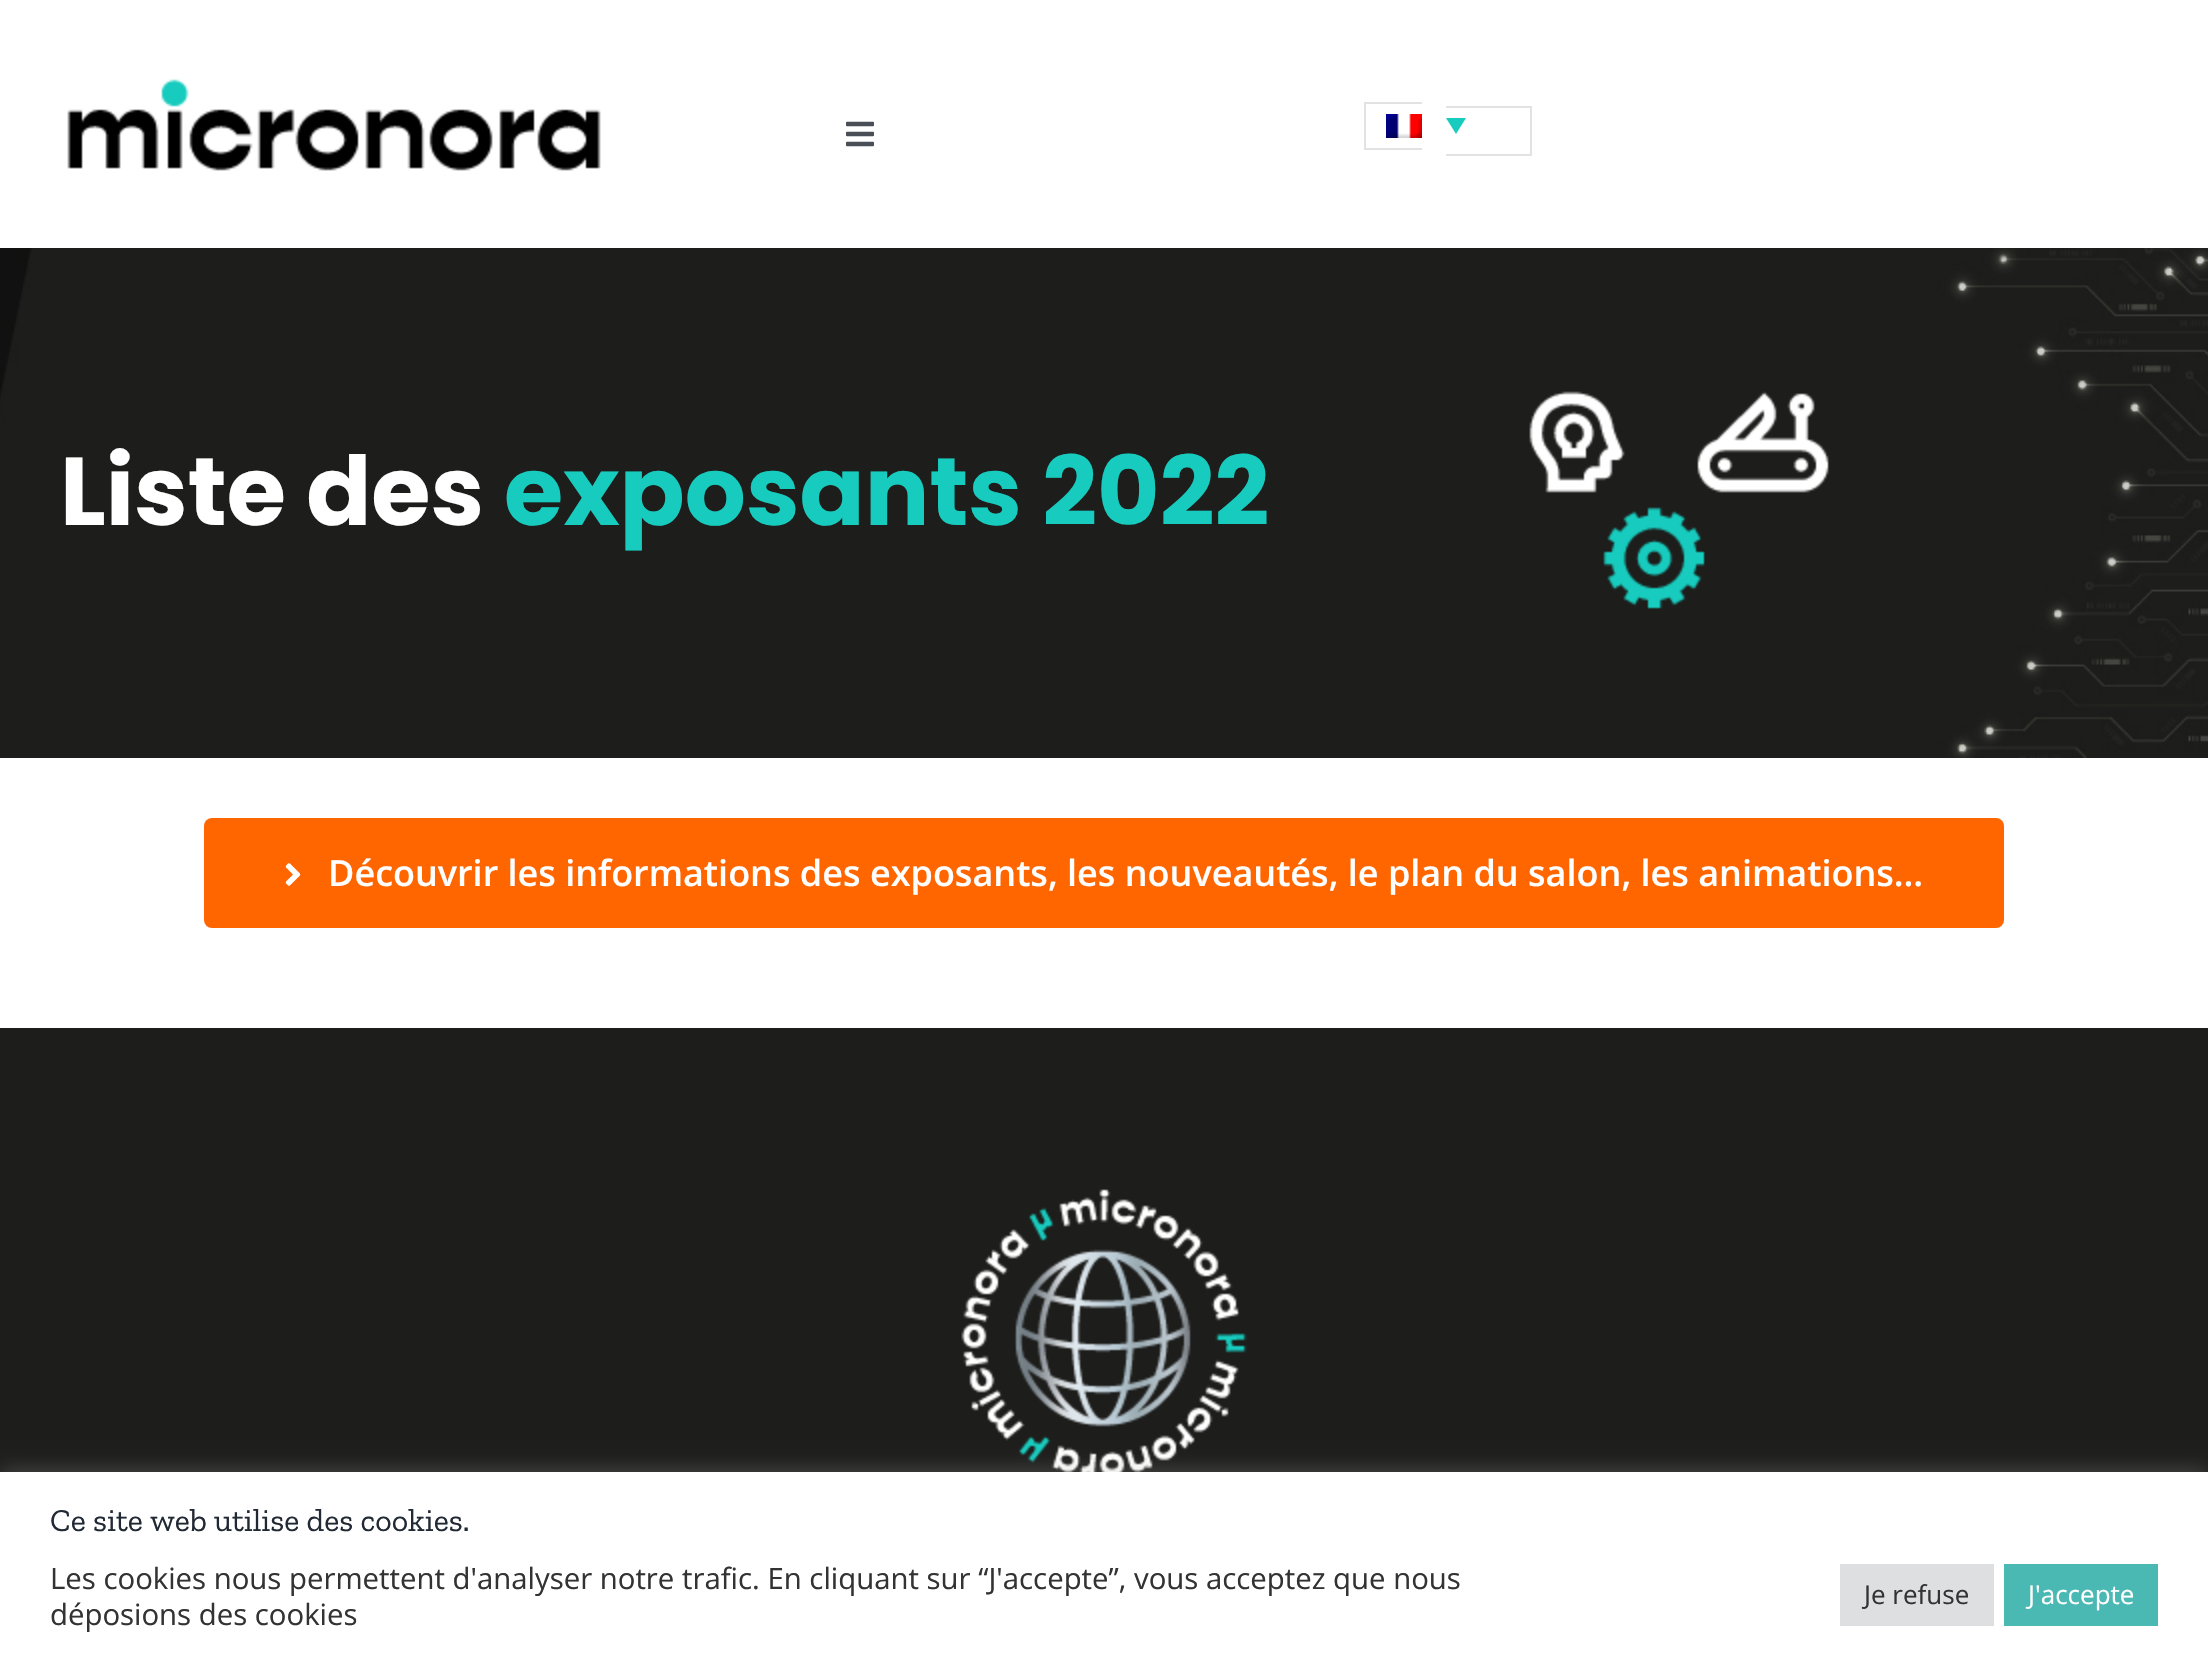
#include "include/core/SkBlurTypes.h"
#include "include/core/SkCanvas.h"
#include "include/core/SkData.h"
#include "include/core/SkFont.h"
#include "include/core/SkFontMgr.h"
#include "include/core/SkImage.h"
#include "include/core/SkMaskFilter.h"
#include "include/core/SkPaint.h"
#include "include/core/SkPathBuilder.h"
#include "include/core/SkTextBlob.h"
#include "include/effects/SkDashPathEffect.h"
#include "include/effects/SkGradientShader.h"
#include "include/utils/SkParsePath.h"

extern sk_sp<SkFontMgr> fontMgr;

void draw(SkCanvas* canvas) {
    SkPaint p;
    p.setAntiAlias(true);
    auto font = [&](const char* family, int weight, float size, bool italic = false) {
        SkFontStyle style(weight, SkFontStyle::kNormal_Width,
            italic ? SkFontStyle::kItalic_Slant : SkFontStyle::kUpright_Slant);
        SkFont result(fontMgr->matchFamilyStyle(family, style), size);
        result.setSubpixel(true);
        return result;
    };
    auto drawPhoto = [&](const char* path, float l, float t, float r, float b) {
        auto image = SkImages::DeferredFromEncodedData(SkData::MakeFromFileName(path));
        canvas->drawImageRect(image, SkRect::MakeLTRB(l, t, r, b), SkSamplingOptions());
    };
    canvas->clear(0xFFFFFFFF);
    drawPhoto("media/1.png", 67, 79, 601, 171);
    drawPhoto("media/2.png", 846, 121, 874, 147);
    {
        const struct { float l, t, r, b; SkColor color; } items[] = {
            {1364, 102, 1422, 104, 0xFFE2E2E2},
            {1364, 148, 1422, 150, 0xFFE2E2E2},
            {1364, 102, 1366, 150, 0xFFE2E2E2},
            {1446, 106, 1532, 108, 0xFFE2E2E2},
            {1530, 106, 1532, 156, 0xFFE2E2E2},
            {1446, 154, 1532, 156, 0xFFE2E2E2},
        };
        for (auto [l, t, r, b, color] : items) {
            p.setColor(color);
            canvas->drawRect(SkRect::MakeLTRB(l, t, r, b), p);
        }
    }
    drawPhoto("media/3.png", 1386, 114, 1422, 138);
    p.setColor(0xFF17CCBE);
    canvas->drawPath(SkPathBuilder().moveTo(1446, 118).lineTo(1466, 118).lineTo(1456, 134).close().detach(), p);
    drawPhoto("media/4.png", 0, 248, 2208, 758);
    auto font1 = font("Poppins", 700, 96);
    p.setColor(0xFFFFFFFF);
    canvas->drawString("Liste des", 60, 525, font1, p);
    p.setColor(0xFF17CCBE);
    canvas->drawString("exposants 2022", 504, 525, font1, p);
    drawPhoto("media/5.png", 1529, 391, 1829, 609);
    p.setColor(0xFFFF6600);
    canvas->drawRoundRect(SkRect::MakeLTRB(204, 818, 2004, 928), 8, 8, p);
    drawPhoto("media/6.png", 285, 863, 301, 886);
    auto font2 = font("Open Sans", 600, 36);
    p.setColor(0xFFFFFFFF);
    canvas->drawString("Découvrir les informations des exposants, les nouveautés, le plan du salon, les animations…", 328, 886, font2, p);
    p.setColor(0xFF1D1D1B);
    canvas->drawRect(SkRect::MakeLTRB(0, 1028, 2208, 1472), p);
    drawPhoto("media/7.png", 961, 1189, 1247, 1472);
    p.setColor(0x4DACABAB);
    p.setMaskFilter(SkMaskFilter::MakeBlur(kNormal_SkBlurStyle, 10));
    canvas->drawRect(SkRect::MakeLTRB(0, 1470, 2208, 1662), p);
    p.setMaskFilter(nullptr);
    p.setColor(0xFFFFFFFF);
    canvas->drawRect(SkRect::MakeLTRB(0, 1472, 2208, 1664), p);
    auto font3 = font("Zilla Slab", 400, 32);
    p.setColor(0xFF212934);
    canvas->drawString("Ce site web utilise des cookies.", 50, 1531, font3, p);
    auto font4 = font("Open Sans", 400, 29.35f);
    p.setColor(0xFF333333);
    canvas->drawString("Les cookies nous permettent d'analyser notre trafic. En cliquant sur “J'accepte”, vous acceptez que nous", 50, 1589, font4, p);
    canvas->drawString("déposions des cookies", 50, 1625, font4, p);
    p.setColor(0xFFDEDFE0);
    canvas->drawRect(SkRect::MakeLTRB(1840, 1564, 1994, 1626), p);
    auto font5 = font("Open Sans", 400, 26);
    p.setColor(0xFF333333);
    canvas->drawString("Je refuse", 1864, 1604, font5, p);
    p.setColor(0xFF4AB8B3);
    canvas->drawRect(SkRect::MakeLTRB(2004, 1564, 2158, 1626), p);
    p.setColor(0xFFFFFFFF);
    canvas->drawString("J'accepte", 2028, 1604, font5, p);
}
